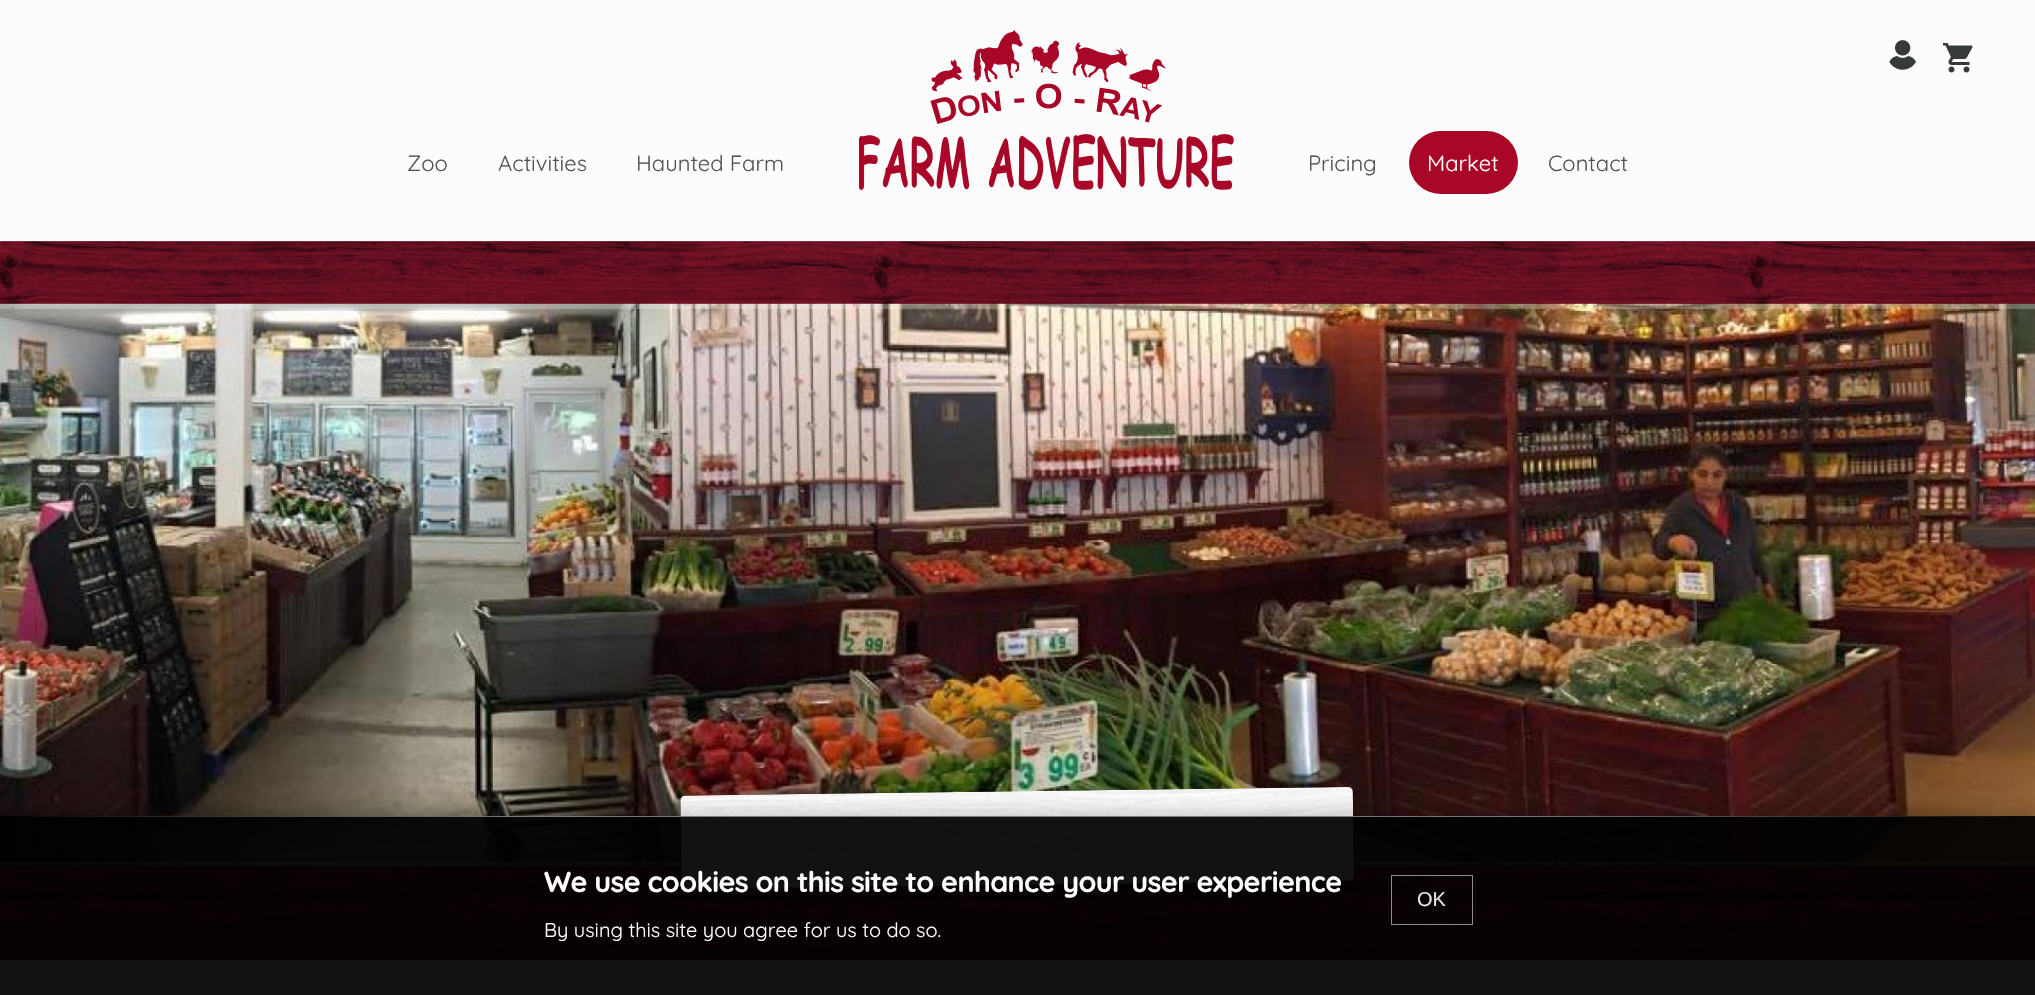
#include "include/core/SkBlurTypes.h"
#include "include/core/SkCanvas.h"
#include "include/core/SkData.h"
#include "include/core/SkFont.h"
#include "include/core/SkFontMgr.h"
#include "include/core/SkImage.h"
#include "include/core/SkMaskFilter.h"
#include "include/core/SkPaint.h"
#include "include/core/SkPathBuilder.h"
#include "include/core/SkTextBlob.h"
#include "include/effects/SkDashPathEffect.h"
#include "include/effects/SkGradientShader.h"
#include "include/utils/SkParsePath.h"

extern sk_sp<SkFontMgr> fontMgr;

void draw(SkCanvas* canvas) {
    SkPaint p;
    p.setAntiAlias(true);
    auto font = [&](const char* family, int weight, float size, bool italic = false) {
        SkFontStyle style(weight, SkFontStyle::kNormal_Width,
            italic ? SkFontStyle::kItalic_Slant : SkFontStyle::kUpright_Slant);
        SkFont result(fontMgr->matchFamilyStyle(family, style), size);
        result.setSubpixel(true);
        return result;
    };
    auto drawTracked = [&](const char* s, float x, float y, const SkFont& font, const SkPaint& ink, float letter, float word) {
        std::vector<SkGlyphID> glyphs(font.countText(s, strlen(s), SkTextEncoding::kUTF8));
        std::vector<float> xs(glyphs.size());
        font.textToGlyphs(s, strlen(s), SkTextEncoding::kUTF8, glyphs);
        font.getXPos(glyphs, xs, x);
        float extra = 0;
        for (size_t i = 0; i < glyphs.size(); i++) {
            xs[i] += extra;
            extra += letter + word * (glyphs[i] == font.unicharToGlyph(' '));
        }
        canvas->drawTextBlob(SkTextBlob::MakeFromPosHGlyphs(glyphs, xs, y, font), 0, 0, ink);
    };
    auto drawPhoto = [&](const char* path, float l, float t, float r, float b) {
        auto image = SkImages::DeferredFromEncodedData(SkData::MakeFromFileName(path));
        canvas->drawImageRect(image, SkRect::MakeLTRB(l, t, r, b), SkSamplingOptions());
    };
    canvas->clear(0xFFFCFCFC);
    drawPhoto("media/1.png", 1889, 40, 1916, 70);
    drawPhoto("media/2.png", 1943, 43, 1973, 73);
    auto font1 = font("Quicksand", 300, 22);
    p.setColor(0xFF505454);
    {
        const struct { const char* s; float x, y; } items[] = {
            {"Zoo", 407, 171},
            {"Activities", 498, 171},
            {"Haunted Farm", 636, 171},
        };
        for (auto [s, x, y] : items) {
            canvas->drawString(s, x, y, font1, p);
        }
    }
    drawPhoto("media/3.png", 859, 30, 1234, 190);
    canvas->drawString("Pricing", 1308, 171, font1, p);
    p.setColor(0xFFA80728);
    canvas->drawRoundRect(SkRect::MakeLTRB(1409, 131, 1518, 194), 31.5f, 31.5f, p);
    p.setColor(0xFFFFFFFF);
    canvas->drawString("Market", 1427, 171, font1, p);
    p.setColor(0xFF505454);
    canvas->drawString("Contact", 1548, 171, font1, p);
    drawPhoto("media/4.png", 0, 241, 2035, 960);
    drawPhoto("media/5.png", 0, 303, 2035, 867);
    p.setColor(0x40FFFFFF);
    canvas->drawRect(SkRect::MakeLTRB(0, 304, 2035, 309), p);
    canvas->drawRect(SkRect::MakeLTRB(0, 861, 2035, 866), p);
    p.setColor(0x54000000);
    p.setMaskFilter(SkMaskFilter::MakeBlur(kNormal_SkBlurStyle, 3));
    canvas->drawRoundRect(SkRect::MakeLTRB(681, 796, 1354, 890), 5, 5, p);
    p.setMaskFilter(nullptr);
    drawPhoto("media/6.png", 680, 787, 1354, 890);
    canvas->save();
    canvas->clipPath(SkPathBuilder(SkPathFillType::kEvenOdd).moveTo(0, 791).lineTo(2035, 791).lineTo(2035, 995).lineTo(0, 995).close().moveTo(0, 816).lineTo(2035, 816).lineTo(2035, 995).lineTo(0, 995).close().detach(), true);
    p.setColor(0x26000000);
    p.setMaskFilter(SkMaskFilter::MakeBlur(kNormal_SkBlurStyle, 6));
    canvas->drawRect(SkRect::MakeLTRB(0, 810, 2035, 989), p);
    p.setMaskFilter(nullptr);
    canvas->restore();
    p.setColor(0xED000000);
    canvas->drawRect(SkRect::MakeLTRB(0, 816, 2035, 995), p);
    {
        const SkColor colors[] = {0x00FFFFFF, 0x73FFFFFF, 0x73FFFFFF, 0x00FFFFFF};
        const float stops[] = {0, 0.25f, 0.75f, 1};
        const SkPoint ends[] = {{0, 817}, {2035, 817}};
        p.setShader(SkGradientShader::MakeLinear(ends, colors, stops, 4, SkTileMode::kClamp));
        p.setAlpha(255);
    }
    canvas->drawRect(SkRect::MakeLTRB(24, 816, 2011, 817), p);
    auto font2 = font("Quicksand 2", 300, 28.75f);
    p.setShader(nullptr);
    p.setColor(0xFFFFFFFF);
    drawTracked("We use cookies on this site to enhance your user experience", 544, 892, font2, p, -0.62f, 0);
    auto font3 = font("Quicksand", 300, 20);
    canvas->drawString("By using this site you agree for us to do so.", 544, 937, font3, p);
    p.setStyle(SkPaint::kStroke_Style);
    p.setStrokeWidth(1);
    p.setColor(0x8CFFFFFF);
    canvas->drawRect(SkRect::MakeLTRB(1391.5f, 875.5f, 1472.5f, 924.5f), p);
    auto font4 = font("Liberation Sans", 400, 20);
    p.setStyle(SkPaint::kFill_Style);
    p.setColor(0xFFE6E6E6);
    canvas->drawString("OK", 1417, 906, font4, p);
}
